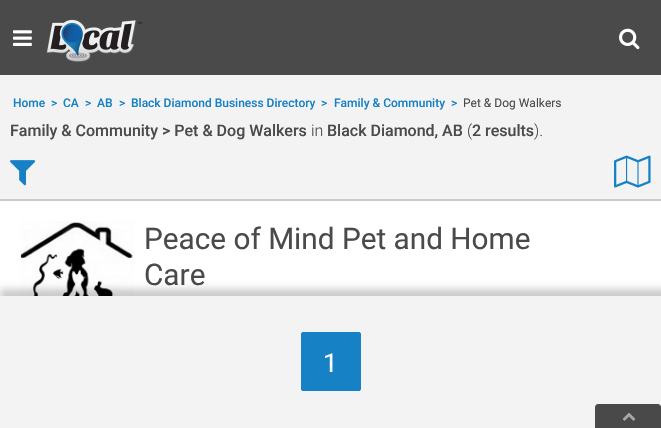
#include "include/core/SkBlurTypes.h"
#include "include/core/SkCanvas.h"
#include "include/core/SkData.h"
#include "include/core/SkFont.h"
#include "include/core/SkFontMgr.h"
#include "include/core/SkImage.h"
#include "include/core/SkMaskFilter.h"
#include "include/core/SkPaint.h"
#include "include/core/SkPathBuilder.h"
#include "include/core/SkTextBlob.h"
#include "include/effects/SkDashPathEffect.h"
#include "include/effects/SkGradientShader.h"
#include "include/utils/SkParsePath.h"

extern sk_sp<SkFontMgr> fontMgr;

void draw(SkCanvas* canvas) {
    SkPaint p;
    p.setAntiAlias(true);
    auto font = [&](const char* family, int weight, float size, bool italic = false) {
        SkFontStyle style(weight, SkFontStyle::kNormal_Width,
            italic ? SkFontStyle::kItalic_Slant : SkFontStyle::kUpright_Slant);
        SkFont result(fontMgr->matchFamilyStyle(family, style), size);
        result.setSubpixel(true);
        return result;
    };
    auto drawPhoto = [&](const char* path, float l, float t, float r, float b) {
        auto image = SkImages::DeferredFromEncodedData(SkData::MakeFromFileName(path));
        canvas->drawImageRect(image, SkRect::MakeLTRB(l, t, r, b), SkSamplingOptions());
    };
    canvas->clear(0xFFFFFFFF);
    p.setColor(0xFF4A4A4A);
    canvas->drawRect(SkRect::MakeLTRB(0, 0, 661, 75), p);
    drawPhoto("media/1.png", 13, 30, 32, 46);
    drawPhoto("media/2.png", 46, 19, 142, 62);
    drawPhoto("media/3.png", 619, 28, 640, 50);
    p.setColor(0xFFF3F3F3);
    canvas->drawRect(SkRect::MakeLTRB(0, 75, 661, 199), p);
    p.setColor(0xFFCACACA);
    canvas->drawRect(SkRect::MakeLTRB(0, 199, 661, 201), p);
    auto font1 = font("Roboto", 500, 12);
    p.setColor(0xFF1681C4);
    {
        const struct { const char* s; float x, y; } items[] = {
            {"Home", 13, 107},
            {">", 51, 107},
            {"CA", 63, 107},
            {">", 85, 107},
            {"AB", 97, 107},
            {">", 119, 107},
            {"Black Diamond Business Directory", 131, 107},
            {">", 321, 107},
            {"Family & Community", 334, 107},
            {">", 451, 107},
        };
        for (auto [s, x, y] : items) {
            canvas->drawString(s, x, y, font1, p);
        }
    }
    auto font2 = font("Roboto", 400, 12);
    p.setColor(0xFF4A4A4A);
    canvas->drawString("Pet & Dog Walkers", 463, 107, font2, p);
    auto font3 = font("Roboto", 500, 16);
    canvas->drawString("Family & Community > Pet & Dog Walkers", 10, 136, font3, p);
    auto font4 = font("Roboto", 300, 16);
    canvas->drawString("in", 311, 136, font4, p);
    canvas->drawString("Black Diamond, AB", 327, 136, font3, p);
    canvas->drawString("(", 467, 136, font4, p);
    canvas->drawString("2 results", 472, 136, font3, p);
    canvas->drawString(").", 534, 136, font4, p);
    drawPhoto("media/4.png", 10, 160, 36, 186);
    drawPhoto("media/5.png", 614, 155, 651, 188);
    drawPhoto("media/6.png", 20, 221, 134, 296);
    auto font5 = font("Roboto", 400, 29.75f);
    canvas->drawString("Peace of Mind Pet and Home", 144, 249, font5, p);
    canvas->drawString("Care", 144, 285, font5, p);
    p.setColor(0x33000000);
    p.setMaskFilter(SkMaskFilter::MakeBlur(kNormal_SkBlurStyle, 3.5f));
    canvas->drawRect(SkRect::MakeLTRB(0, 289, 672, 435), p);
    p.setMaskFilter(nullptr);
    p.setColor(0xFFF3F3F3);
    canvas->drawRect(SkRect::MakeLTRB(0, 296, 661, 428), p);
    p.setColor(0xFF1681C4);
    canvas->drawRoundRect(SkRect::MakeLTRB(301.5f, 332.5f, 360.5f, 390.5f), 1.5f, 1.5f, p);
    p.setStyle(SkPaint::kStroke_Style);
    p.setStrokeWidth(1);
    canvas->drawRoundRect(SkRect::MakeLTRB(301.5f, 332.5f, 360.5f, 390.5f), 1.5f, 1.5f, p);
    auto font6 = font("Roboto", 400, 26);
    p.setStyle(SkPaint::kFill_Style);
    p.setColor(0xFFFFFFFF);
    canvas->drawString("1", 323, 372, font6, p);
    p.setColor(0xFF4A494A);
    canvas->drawPath(SkPathBuilder().moveTo(598, 404).lineTo(658, 404).cubicTo(659.5f, 404, 661, 405.5f, 661, 407).lineTo(661, 428).lineTo(595, 428).lineTo(595, 407).cubicTo(595, 405.5f, 596.5f, 404, 598, 404).close().detach(), p);
    drawPhoto("media/7.png", 622, 412, 636, 421);
}
